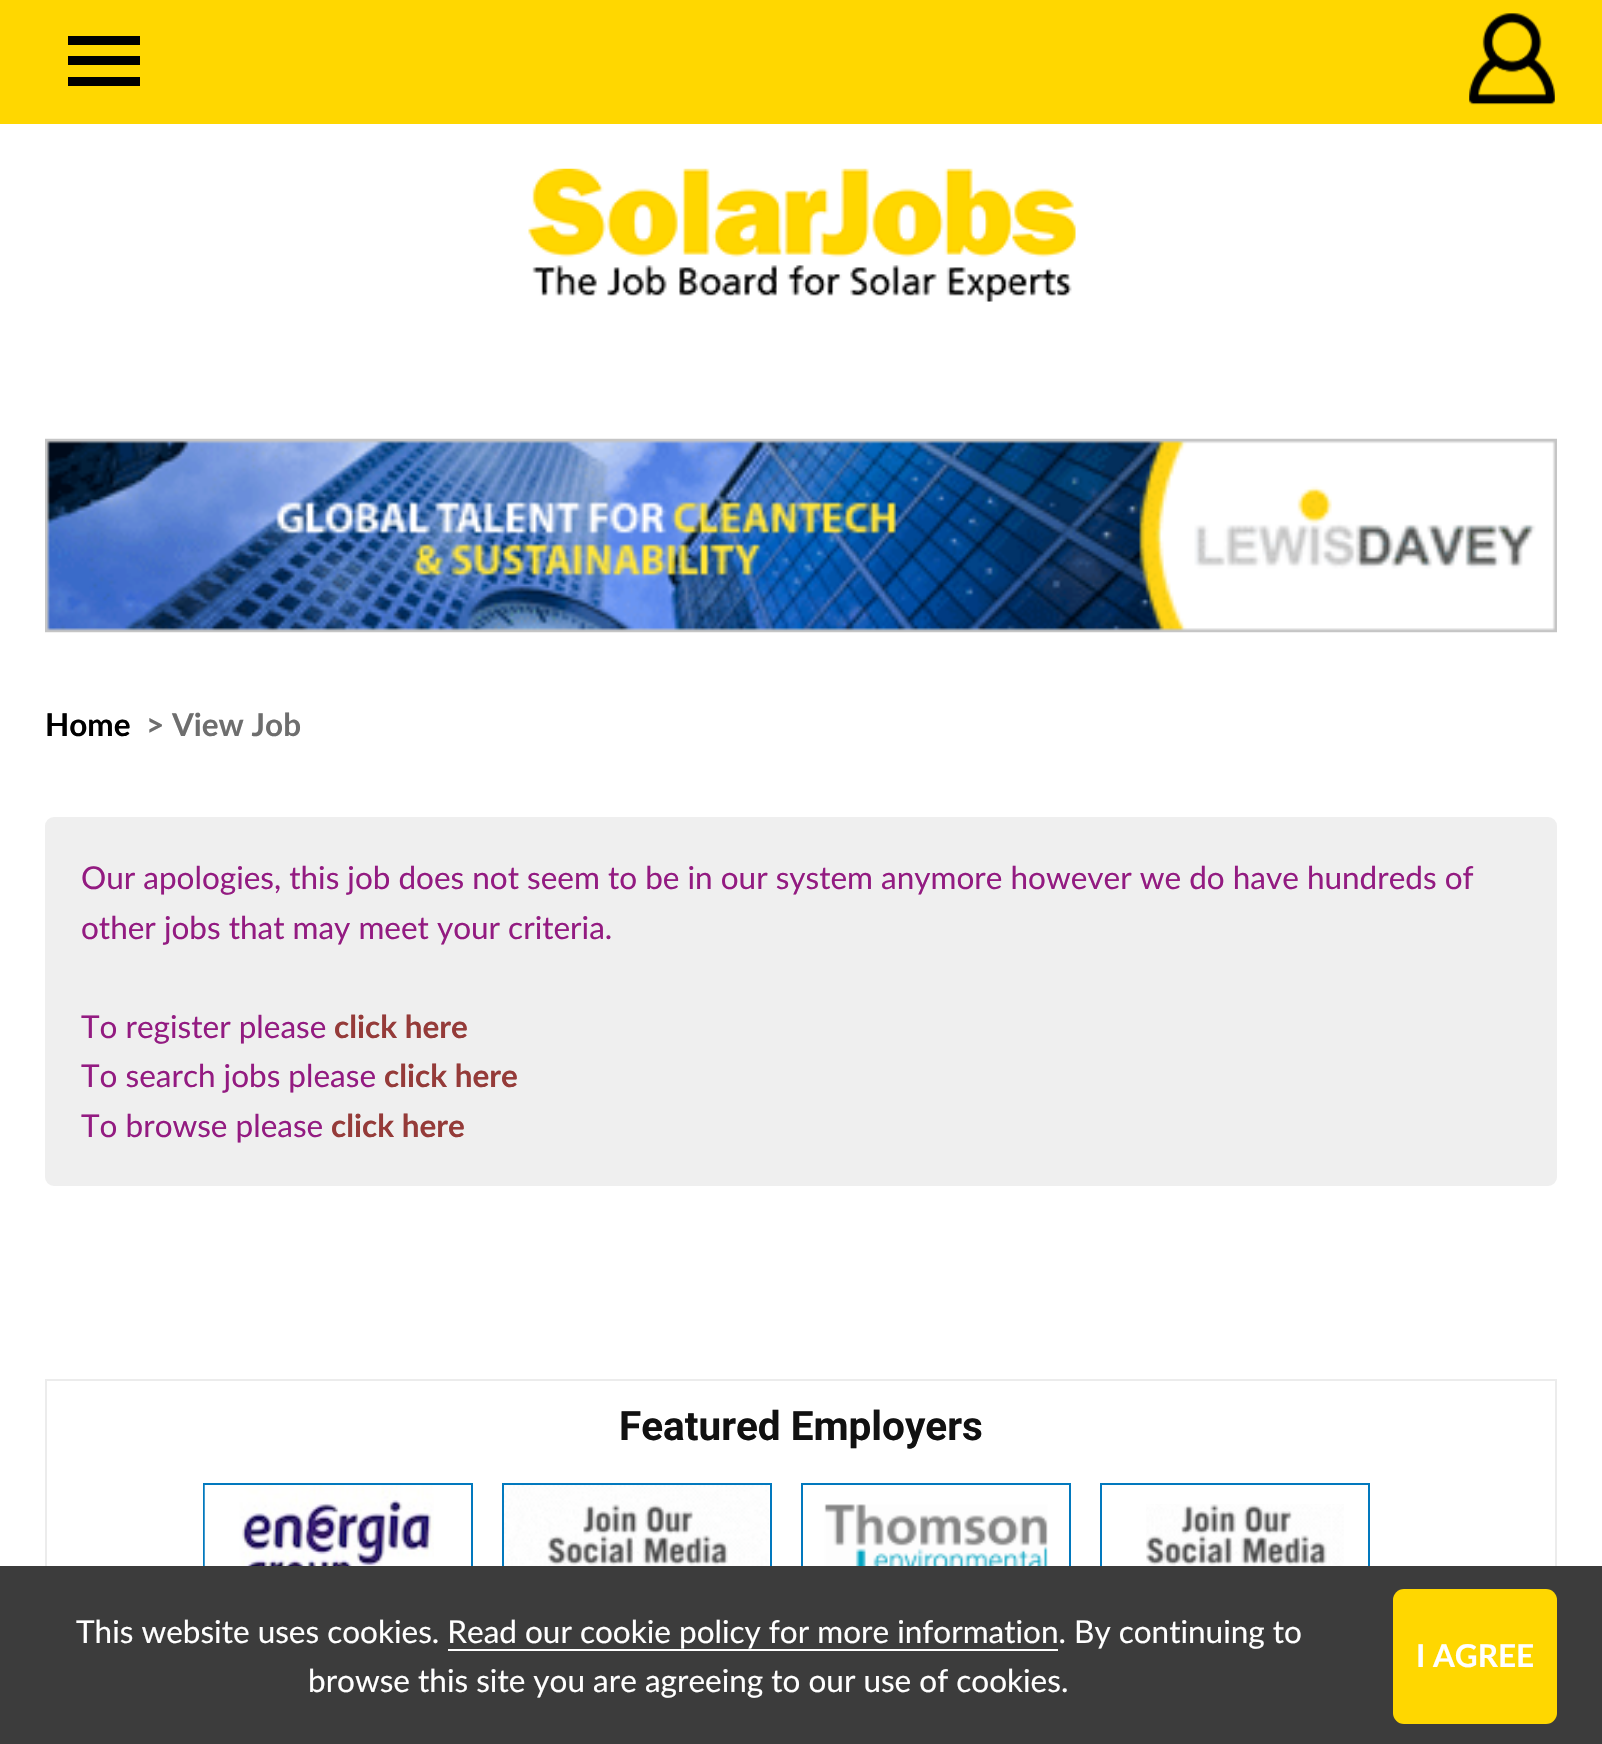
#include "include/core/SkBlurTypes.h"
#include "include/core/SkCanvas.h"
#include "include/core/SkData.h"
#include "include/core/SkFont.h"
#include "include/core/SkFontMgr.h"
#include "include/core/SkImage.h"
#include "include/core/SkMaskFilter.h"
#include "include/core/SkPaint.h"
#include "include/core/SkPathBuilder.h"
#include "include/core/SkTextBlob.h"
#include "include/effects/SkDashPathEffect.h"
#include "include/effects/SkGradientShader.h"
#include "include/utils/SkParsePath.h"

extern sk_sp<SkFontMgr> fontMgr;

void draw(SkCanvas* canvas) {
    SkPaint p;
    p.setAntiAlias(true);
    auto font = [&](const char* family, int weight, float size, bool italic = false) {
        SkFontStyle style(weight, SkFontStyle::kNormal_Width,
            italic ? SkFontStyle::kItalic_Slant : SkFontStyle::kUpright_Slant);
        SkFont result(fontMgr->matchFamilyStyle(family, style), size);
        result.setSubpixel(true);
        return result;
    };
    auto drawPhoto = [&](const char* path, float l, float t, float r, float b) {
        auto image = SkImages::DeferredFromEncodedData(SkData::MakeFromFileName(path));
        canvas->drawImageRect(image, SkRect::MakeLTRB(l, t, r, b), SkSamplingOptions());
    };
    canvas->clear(0xFFFFFFFF);
    {
        const struct { float l, t, r, b; SkColor color; } items[] = {
            {0, 0, 1602, 124, 0xFFFFD700},
            {68, 36, 140, 45, 0xFF000000},
            {68, 56, 140, 65, 0xFF000000},
            {68, 77, 140, 86, 0xFF000000},
        };
        for (auto [l, t, r, b, color] : items) {
            p.setColor(color);
            canvas->drawRect(SkRect::MakeLTRB(l, t, r, b), p);
        }
    }
    drawPhoto("media/1.png", 1469, 13, 1555, 105);
    drawPhoto("media/2.png", 528, 168, 1076, 302);
    drawPhoto("media/3.png", 45, 438, 1557, 633);
    auto font1 = font("Lato", 700, 31.5f);
    canvas->drawString("Home", 45, 736, font1, p);
    p.setColor(0xFF6E6E6E);
    canvas->drawString("> View Job", 146, 736, font1, p);
    p.setColor(0xFFEFEFEF);
    canvas->drawRoundRect(SkRect::MakeLTRB(46, 818, 1556, 1185), 8, 8, p);
    p.setStyle(SkPaint::kStroke_Style);
    p.setStrokeWidth(2);
    canvas->drawRoundRect(SkRect::MakeLTRB(46, 818, 1556, 1185), 8, 8, p);
    auto font2 = font("Lato", 400, 31.5f);
    p.setStyle(SkPaint::kFill_Style);
    p.setColor(0xFF931B81);
    {
        const struct { const char* s; float x, y; } items[] = {
            {"Our apologies, this job does not seem to be in our system anymore however we do have hundreds of", 81, 889},
            {"other jobs that may meet your criteria.", 81, 939},
            {"To register please", 81, 1038},
        };
        for (auto [s, x, y] : items) {
            canvas->drawString(s, x, y, font2, p);
        }
    }
    p.setColor(0xFF953B39);
    canvas->drawString("click here", 334, 1038, font1, p);
    p.setColor(0xFF931B81);
    canvas->drawString("To search jobs please", 81, 1087, font2, p);
    p.setColor(0xFF953B39);
    canvas->drawString("click here", 384, 1087, font1, p);
    p.setColor(0xFF931B81);
    canvas->drawString("To browse please", 81, 1137, font2, p);
    p.setColor(0xFF953B39);
    canvas->drawString("click here", 331, 1137, font1, p);
    p.setStyle(SkPaint::kStroke_Style);
    p.setColor(0xFFECECEC);
    canvas->drawRect(SkRect::MakeLTRB(46, 1380, 1556, 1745), p);
    auto font3 = font("Roboto", 700, 40.5f);
    p.setStyle(SkPaint::kFill_Style);
    p.setColor(0xFF111111);
    canvas->drawString("Featured Employers", 619, 1440, font3, p);
    p.setStyle(SkPaint::kStroke_Style);
    p.setColor(0xFF0279BE);
    canvas->drawRect(SkRect::MakeLTRB(204, 1484, 472, 1619), p);
    drawPhoto("media/4.png", 204, 1485, 434, 1566);
    canvas->drawRect(SkRect::MakeLTRB(503, 1484, 771, 1619), p);
    drawPhoto("media/5.png", 504, 1485, 769, 1566);
    canvas->drawRect(SkRect::MakeLTRB(802, 1484, 1070, 1619), p);
    drawPhoto("media/6.png", 824, 1504, 1048, 1566);
    canvas->drawRect(SkRect::MakeLTRB(1101, 1484, 1369, 1619), p);
    drawPhoto("media/7.png", 1146, 1504, 1344, 1566);
    p.setStyle(SkPaint::kFill_Style);
    p.setColor(0xFF3C3C3C);
    canvas->drawRect(SkRect::MakeLTRB(0, 1566, 1602, 1744), p);
    p.setColor(0xFFFFFFFF);
    canvas->drawString("This website uses cookies. Read our cookie policy for more information. By continuing to", 76, 1643, font2, p);
    canvas->drawRect(SkRect::MakeLTRB(448, 1649, 1058, 1651), p);
    p.setColor(0xFFFFD700);
    canvas->drawRoundRect(SkRect::MakeLTRB(1393, 1589, 1557, 1724), 11, 11, p);
    p.setColor(0xFFFFFFFF);
    canvas->drawString("I AGREE", 1416, 1667, font1, p);
    canvas->drawString("browse this site you are agreeing to our use of cookies.", 308, 1692, font2, p);
}
